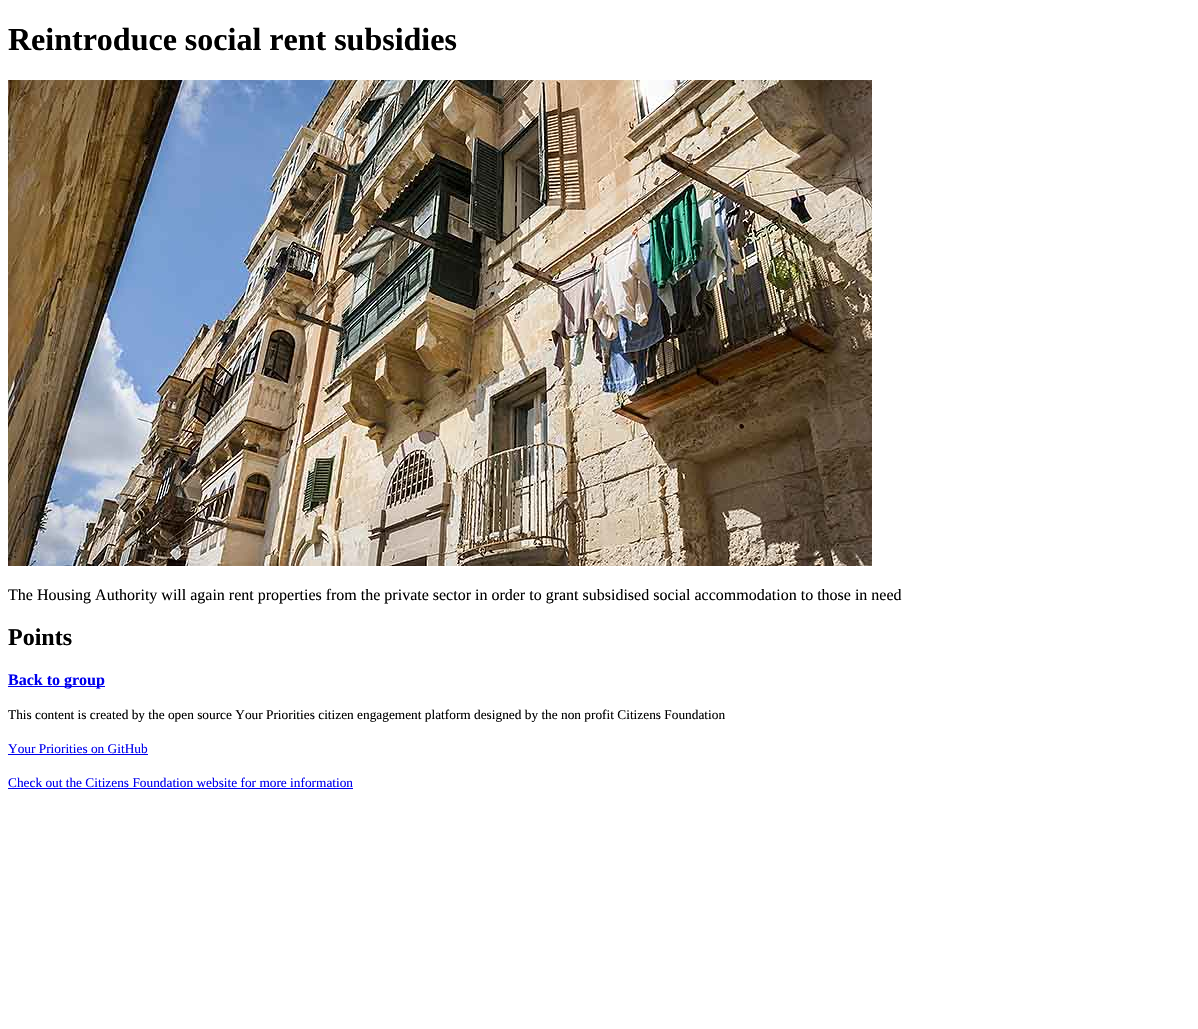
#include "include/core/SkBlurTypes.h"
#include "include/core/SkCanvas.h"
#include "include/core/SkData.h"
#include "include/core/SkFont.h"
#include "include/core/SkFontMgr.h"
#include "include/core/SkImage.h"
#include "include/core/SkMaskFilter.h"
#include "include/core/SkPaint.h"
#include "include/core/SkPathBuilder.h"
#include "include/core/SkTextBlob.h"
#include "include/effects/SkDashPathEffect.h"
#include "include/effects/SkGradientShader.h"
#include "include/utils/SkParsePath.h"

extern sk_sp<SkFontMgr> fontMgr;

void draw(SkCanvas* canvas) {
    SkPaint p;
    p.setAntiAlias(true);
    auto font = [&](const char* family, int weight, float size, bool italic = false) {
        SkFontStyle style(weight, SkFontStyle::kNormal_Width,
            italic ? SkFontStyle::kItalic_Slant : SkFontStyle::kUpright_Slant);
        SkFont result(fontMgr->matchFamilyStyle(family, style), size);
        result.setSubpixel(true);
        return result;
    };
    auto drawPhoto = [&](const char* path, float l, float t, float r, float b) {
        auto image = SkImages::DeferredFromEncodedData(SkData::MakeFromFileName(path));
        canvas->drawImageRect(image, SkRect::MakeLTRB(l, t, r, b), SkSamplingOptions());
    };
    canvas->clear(0xFFFFFFFF);
    auto font1 = font("Liberation Serif", 700, 32);
    p.setColor(0xFF000000);
    canvas->drawString("Reintroduce social rent subsidies", 8, 50, font1, p);
    drawPhoto("media/1.png", 8, 80, 872, 566);
    auto font2 = font("Liberation Serif", 400, 16);
    canvas->drawString("The Housing Authority will again rent properties from the private sector in order to grant subsidised social accommodation to those in need", 8, 600, font2, p);
    auto font3 = font("Liberation Serif", 700, 24);
    canvas->drawString("Points", 8, 645, font3, p);
    p.setColor(0xFF0000EE);
    canvas->drawRect(SkRect::MakeLTRB(8, 686, 105, 687), p);
    auto font4 = font("Liberation Serif", 700, 16);
    canvas->drawString("Back to group", 8, 685, font4, p);
    auto font5 = font("Liberation Serif", 400, 13.33f);
    p.setColor(0xFF000000);
    canvas->drawString("This content is created by the open source Your Priorities citizen engagement platform designed by the non profit Citizens Foundation", 8, 719, font5, p);
    p.setColor(0xFF0000EE);
    canvas->drawString("Your Priorities on GitHub", 8, 753, font5, p);
    canvas->drawRect(SkRect::MakeLTRB(8, 754, 148, 755), p);
    canvas->drawString("Check out the Citizens Foundation website for more information", 8, 787, font5, p);
    canvas->drawRect(SkRect::MakeLTRB(8, 788, 353, 789), p);
}
